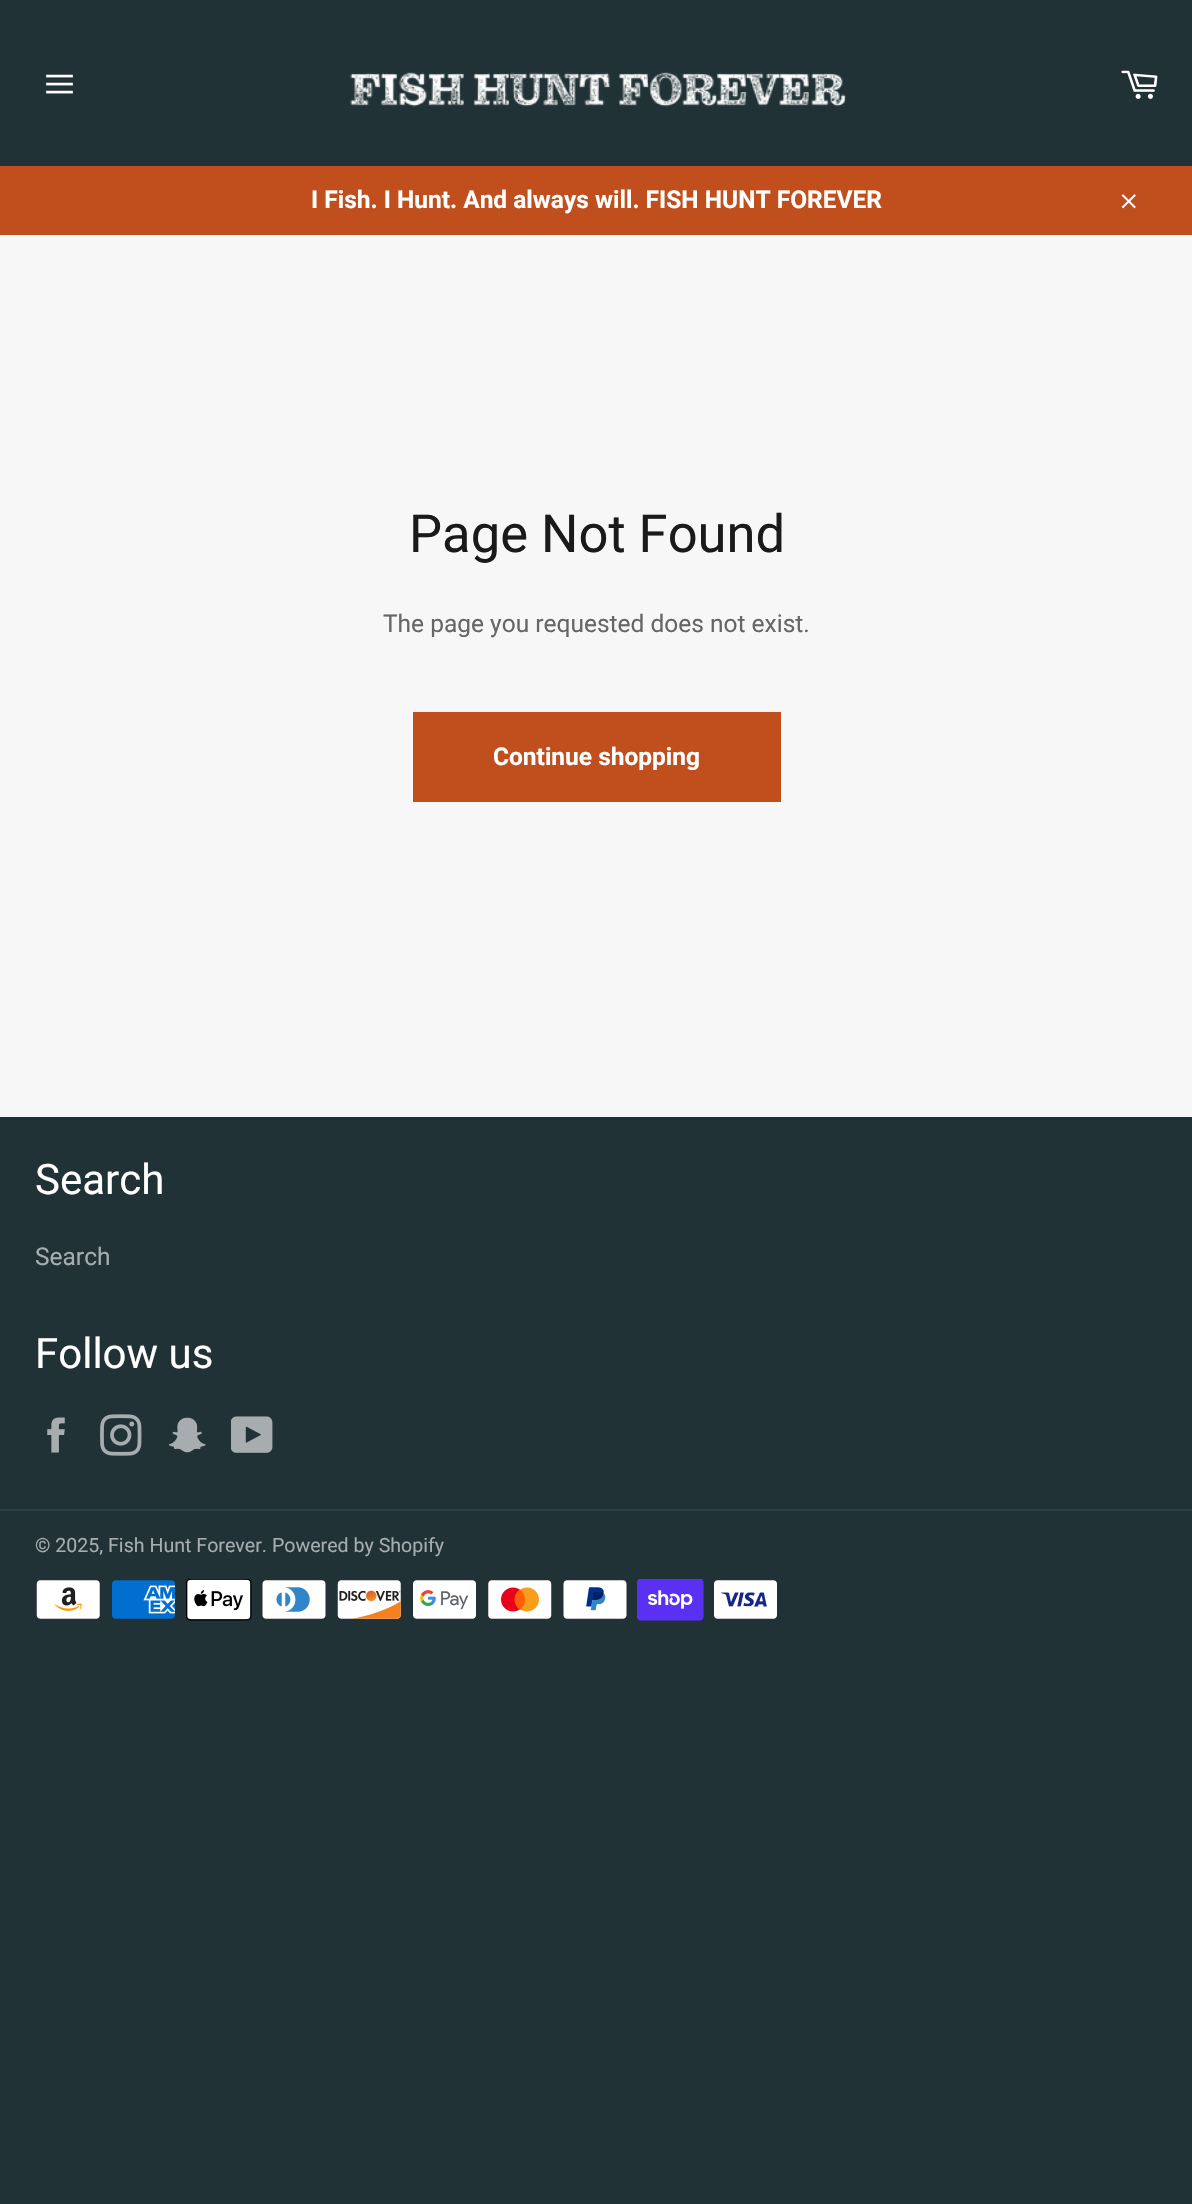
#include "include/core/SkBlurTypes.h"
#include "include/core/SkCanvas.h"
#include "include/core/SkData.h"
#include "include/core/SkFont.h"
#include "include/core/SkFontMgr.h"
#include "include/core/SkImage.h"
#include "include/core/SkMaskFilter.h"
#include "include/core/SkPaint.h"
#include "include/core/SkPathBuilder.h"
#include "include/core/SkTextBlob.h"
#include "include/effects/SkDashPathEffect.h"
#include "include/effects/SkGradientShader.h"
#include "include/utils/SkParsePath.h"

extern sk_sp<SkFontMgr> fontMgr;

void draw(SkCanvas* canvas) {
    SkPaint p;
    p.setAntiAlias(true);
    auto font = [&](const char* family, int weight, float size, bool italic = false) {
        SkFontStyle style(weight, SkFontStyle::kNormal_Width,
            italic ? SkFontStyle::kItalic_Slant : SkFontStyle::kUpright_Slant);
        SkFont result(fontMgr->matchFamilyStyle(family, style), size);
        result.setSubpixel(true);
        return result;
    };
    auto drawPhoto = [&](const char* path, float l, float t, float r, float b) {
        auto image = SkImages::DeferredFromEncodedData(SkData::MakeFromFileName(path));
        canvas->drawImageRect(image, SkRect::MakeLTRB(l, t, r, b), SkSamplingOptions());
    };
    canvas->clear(0xFF213236);
    p.setColor(0xFFF7F7F7);
    canvas->drawRect(SkRect::MakeLTRB(0, 235, 1192, 1117), p);
    drawPhoto("media/1.png", 46, 74, 73, 94);
    drawPhoto("media/2.png", 350, 72, 846, 107);
    drawPhoto("media/3.png", 1121, 70, 1158, 99);
    p.setColor(0xFFC04F1D);
    canvas->drawRect(SkRect::MakeLTRB(0, 166, 1192, 235), p);
    auto font1 = font("Roboto", 700, 24.5f);
    p.setColor(0xFFFFFFFF);
    canvas->drawString("I Fish. I Hunt. And always will. FISH HUNT FOREVER", 311, 208, font1, p);
    drawPhoto("media/4.png", 1121, 194, 1136, 209);
    auto font2 = font("Roboto", 400, 52.5f);
    p.setColor(0xFF1A1A1A);
    canvas->drawString("Page Not Found", 409, 552, font2, p);
    auto font3 = font("Roboto", 400, 24.5f);
    p.setColor(0xFF666666);
    canvas->drawString("The page you requested does not exist.", 383, 632, font3, p);
    p.setColor(0xFFC04F1D);
    canvas->drawRect(SkRect::MakeLTRB(413, 712, 781, 802), p);
    p.setColor(0xFFFFFFFF);
    canvas->drawString("Continue shopping", 493, 765, font1, p);
    auto font4 = font("Roboto", 400, 42);
    canvas->drawString("Search", 35, 1194, font4, p);
    p.setColor(0xFFA6ADAF);
    canvas->drawString("Search", 35, 1265, font3, p);
    p.setColor(0xFFFFFFFF);
    canvas->drawString("Follow us", 35, 1368, font4, p);
    drawPhoto("media/5.png", 47, 1417, 65, 1453);
    drawPhoto("media/6.png", 100, 1414, 142, 1456);
    drawPhoto("media/7.png", 168, 1417, 206, 1453);
    drawPhoto("media/8.png", 231, 1416, 273, 1453);
    p.setColor(0xFF2B4146);
    canvas->drawRect(SkRect::MakeLTRB(0, 1509, 1192, 1511), p);
    auto font5 = font("Roboto", 400, 19.6f);
    p.setColor(0xFFA6ADAF);
    canvas->drawString("© 2025, Fish Hunt Forever. Powered by Shopify", 35, 1552, font5, p);
    drawPhoto("media/9.png", 36, 1580, 100, 1619);
    drawPhoto("media/10.png", 112, 1580, 175, 1619);
    drawPhoto("media/11.png", 186, 1579, 252, 1621);
    drawPhoto("media/12.png", 262, 1580, 326, 1619);
    drawPhoto("media/13.png", 337, 1580, 401, 1619);
    drawPhoto("media/14.png", 413, 1580, 476, 1619);
    drawPhoto("media/15.png", 488, 1580, 552, 1619);
    drawPhoto("media/16.png", 563, 1580, 627, 1619);
    drawPhoto("media/17.png", 637, 1579, 704, 1621);
    drawPhoto("media/18.png", 714, 1580, 777, 1619);
}
